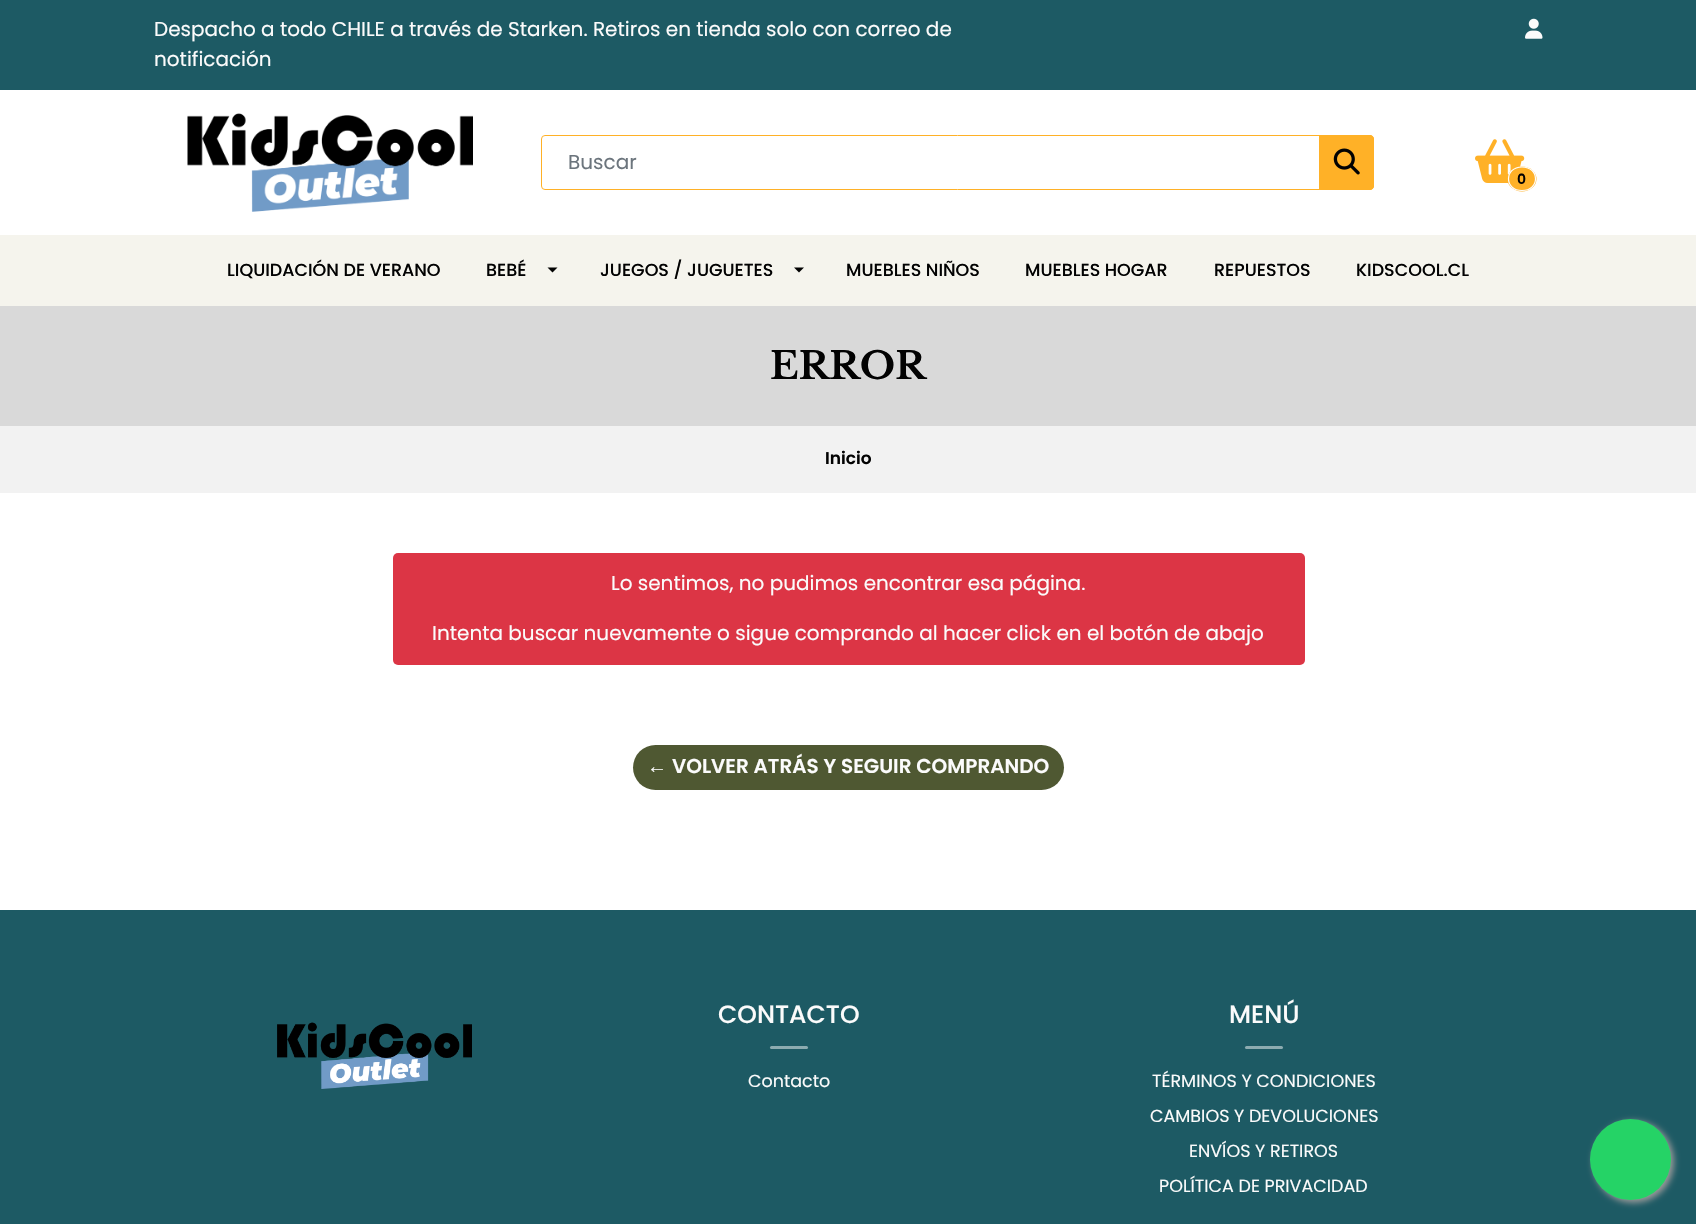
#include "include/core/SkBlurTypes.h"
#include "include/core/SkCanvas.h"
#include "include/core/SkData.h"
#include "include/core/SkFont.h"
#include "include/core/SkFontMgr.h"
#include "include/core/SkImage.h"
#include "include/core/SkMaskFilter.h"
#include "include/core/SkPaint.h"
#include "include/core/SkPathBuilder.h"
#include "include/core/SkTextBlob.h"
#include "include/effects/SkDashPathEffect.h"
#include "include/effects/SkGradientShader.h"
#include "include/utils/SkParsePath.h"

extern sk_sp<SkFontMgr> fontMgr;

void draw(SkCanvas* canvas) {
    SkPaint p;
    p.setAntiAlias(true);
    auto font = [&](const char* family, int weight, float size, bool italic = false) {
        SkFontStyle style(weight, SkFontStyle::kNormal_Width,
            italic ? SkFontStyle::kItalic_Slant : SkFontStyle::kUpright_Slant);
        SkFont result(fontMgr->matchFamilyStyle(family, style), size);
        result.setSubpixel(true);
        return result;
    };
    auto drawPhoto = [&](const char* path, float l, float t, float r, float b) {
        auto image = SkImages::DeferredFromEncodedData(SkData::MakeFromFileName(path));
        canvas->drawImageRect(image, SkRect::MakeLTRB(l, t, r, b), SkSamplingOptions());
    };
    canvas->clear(0xFFFFFFFF);
    p.setColor(0xFF1D5A64);
    canvas->drawRect(SkRect::MakeLTRB(0, 0, 1696, 90), p);
    auto font1 = font("Poppins", 400, 20);
    p.setColor(0xFFFBFBFB);
    canvas->drawString("Despacho a todo CHILE a través de Starken. Retiros en tienda solo con correo de", 154, 36, font1, p);
    canvas->drawString("notificación", 154, 66, font1, p);
    drawPhoto("media/1.png", 1525, 18, 1543, 39);
    drawPhoto("media/2.png", 187, 113, 473, 212);
    p.setStyle(SkPaint::kStroke_Style);
    p.setStrokeWidth(1);
    p.setColor(0xFFFFB127);
    canvas->drawRoundRect(SkRect::MakeLTRB(541.5f, 135.5f, 1373.5f, 189.5f), 3.5f, 3.5f, p);
    p.setStyle(SkPaint::kFill_Style);
    p.setColor(0xFF6C757D);
    canvas->drawString("Buscar", 568, 169, font1, p);
    p.setColor(0xFFFFB127);
    canvas->drawPath(SkPathBuilder().moveTo(1319.5f, 135.5f).lineTo(1370, 135.5f).cubicTo(1372, 135.5f, 1373.5f, 137, 1373.5f, 139).lineTo(1373.5f, 186).cubicTo(1373.5f, 188, 1372, 189.5f, 1370, 189.5f).lineTo(1319.5f, 189.5f).close().detach(), p);
    p.setStyle(SkPaint::kStroke_Style);
    canvas->drawPath(SkPathBuilder().moveTo(1319.5f, 135.5f).lineTo(1370, 135.5f).cubicTo(1372, 135.5f, 1373.5f, 137, 1373.5f, 139).lineTo(1373.5f, 186).cubicTo(1373.5f, 188, 1372, 189.5f, 1370, 189.5f).lineTo(1319.5f, 189.5f).close().detach(), p);
    drawPhoto("media/3.png", 1333, 148, 1360, 175);
    drawPhoto("media/4.png", 1475, 139, 1525, 183);
    p.setStyle(SkPaint::kFill_Style);
    canvas->drawOval(SkRect::MakeLTRB(1507.5f, 166.5f, 1536.5f, 191.5f), p);
    p.setStyle(SkPaint::kStroke_Style);
    p.setStrokeWidth(1.2f);
    p.setColor(0xFFFFFFFF);
    canvas->drawPath(SkPathBuilder().moveTo(1522, 167).cubicTo(1540, 167, 1540, 190.5f, 1522, 190.5f).cubicTo(1504, 190.5f, 1504, 167, 1522, 167).close().detach(), p);
    auto font2 = font("Poppins", 600, 14);
    p.setStyle(SkPaint::kFill_Style);
    p.setColor(0xFF020202);
    canvas->drawString("0", 1517, 184, font2, p);
    p.setColor(0xFFF5F4ED);
    canvas->drawRect(SkRect::MakeLTRB(0, 235, 1696, 306), p);
    auto font3 = font("Poppins", 500, 17.5f);
    p.setColor(0xFF020202);
    canvas->drawString("LIQUIDACIÓN DE VERANO", 227, 276, font3, p);
    canvas->drawString("BEBÉ", 486, 276, font3, p);
    canvas->drawPath(SkPathBuilder().moveTo(547.5f, 267.5f).lineTo(557.5f, 267.5f).lineTo(552.5f, 272.5f).close().detach(), p);
    canvas->drawString("JUEGOS / JUGUETES", 600, 276, font3, p);
    canvas->drawPath(SkPathBuilder().moveTo(794, 267.5f).lineTo(804, 267.5f).lineTo(799, 272.5f).close().detach(), p);
    {
        const struct { const char* s; float x, y; } items[] = {
            {"MUEBLES NIÑOS", 846, 276},
            {"MUEBLES HOGAR", 1025, 276},
            {"REPUESTOS", 1214, 276},
            {"KIDSCOOL.CL", 1356, 276},
        };
        for (auto [s, x, y] : items) {
            canvas->drawString(s, x, y, font3, p);
        }
    }
    p.setColor(0xFFD9D9D9);
    canvas->drawRect(SkRect::MakeLTRB(0, 306, 1696, 426), p);
    auto font4 = font("Libre Baskerville", 700, 37.5f);
    p.setColor(0xFF020202);
    canvas->drawString("ERROR", 770, 379, font4, p);
    p.setColor(0xFFF2F2F2);
    canvas->drawRect(SkRect::MakeLTRB(0, 426, 1696, 493), p);
    auto font5 = font("Poppins", 600, 17);
    p.setColor(0xFF020202);
    canvas->drawString("Inicio", 825, 464, font5, p);
    p.setColor(0xFFDC3545);
    canvas->drawRoundRect(SkRect::MakeLTRB(393, 553, 1305, 665), 5, 5, p);
    p.setColor(0xFFFBFBFB);
    canvas->drawString("Lo sentimos, no pudimos encontrar esa página.", 611, 590, font1, p);
    canvas->drawString("Intenta buscar nuevamente o sigue comprando al hacer click en el botón de abajo", 432, 640, font1, p);
    p.setColor(0xFF4F5832);
    canvas->drawRoundRect(SkRect::MakeLTRB(633, 745, 1064, 790), 22.5f, 22.5f, p);
    auto font6 = font("Liberation Serif", 700, 20);
    p.setColor(0xFFFBFBFB);
    canvas->drawString("←", 647, 773, font6, p);
    auto font7 = font("Poppins", 600, 20);
    canvas->drawString("VOLVER ATRÁS Y SEGUIR COMPRANDO", 672, 773, font7, p);
    p.setColor(0xFF1D5A64);
    canvas->drawRect(SkRect::MakeLTRB(0, 910, 1696, 1224), p);
    drawPhoto("media/5.png", 277, 1022, 472, 1089);
    auto font8 = font("Poppins", 500, 25);
    p.setColor(0xFFFBFBFB);
    canvas->drawString("CONTACTO", 718, 1023, font8, p);
    p.setColor(0xFF8CABB0);
    canvas->drawRoundRect(SkRect::MakeLTRB(770, 1046, 808, 1049), 1.5f, 1.5f, p);
    auto font9 = font("Poppins", 400, 17.5f);
    p.setColor(0xFFFBFBFB);
    canvas->drawString("Contacto", 748, 1087, font9, p);
    canvas->drawString("MENÚ", 1229, 1023, font8, p);
    p.setColor(0xFF8CABB0);
    canvas->drawRoundRect(SkRect::MakeLTRB(1245, 1046, 1283, 1049), 1.5f, 1.5f, p);
    p.setColor(0xFFFBFBFB);
    {
        const struct { const char* s; float x, y; } items[] = {
            {"TÉRMINOS Y CONDICIONES", 1152, 1087},
            {"CAMBIOS Y DEVOLUCIONES", 1150, 1122},
            {"ENVÍOS Y RETIROS", 1189, 1157},
            {"POLÍTICA DE PRIVACIDAD", 1159, 1192},
        };
        for (auto [s, x, y] : items) {
            canvas->drawString(s, x, y, font9, p);
        }
    }
    p.setColor(0xFF999999);
    p.setMaskFilter(SkMaskFilter::MakeBlur(kNormal_SkBlurStyle, 3));
    canvas->drawRoundRect(SkRect::MakeLTRB(1593, 1121, 1674, 1203), 40.5f, 40.5f, p);
    p.setMaskFilter(nullptr);
    p.setColor(0xFF25D366);
    canvas->drawCircle(1630.5f, 1159.5f, 40.5f, p);
}
